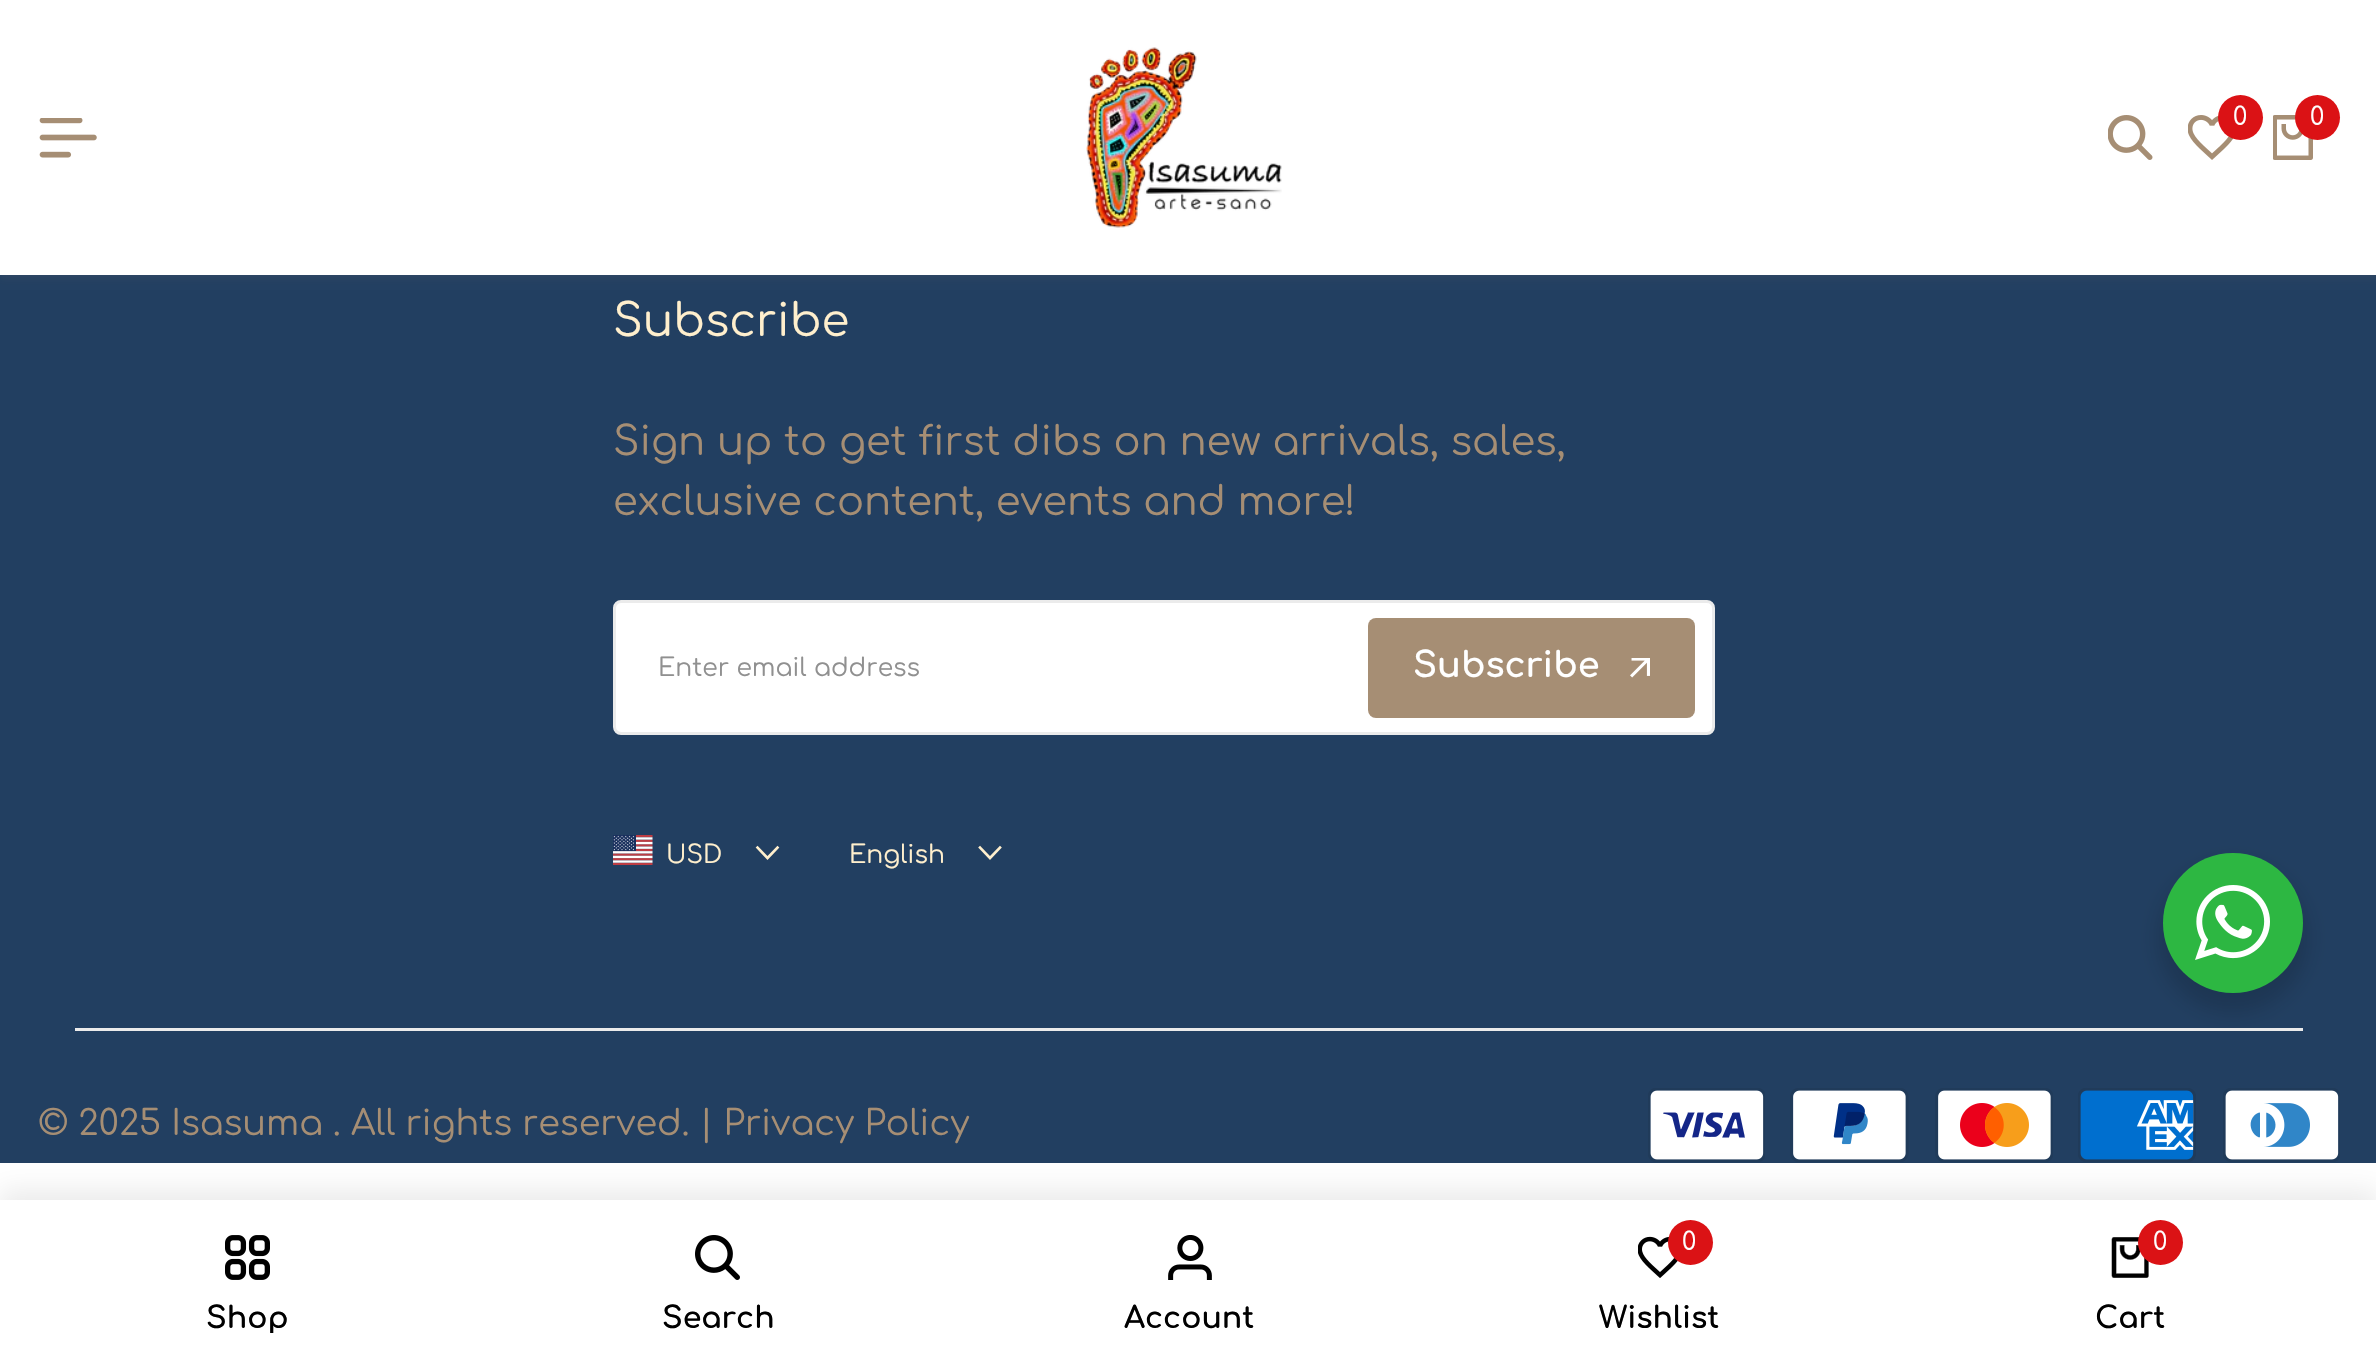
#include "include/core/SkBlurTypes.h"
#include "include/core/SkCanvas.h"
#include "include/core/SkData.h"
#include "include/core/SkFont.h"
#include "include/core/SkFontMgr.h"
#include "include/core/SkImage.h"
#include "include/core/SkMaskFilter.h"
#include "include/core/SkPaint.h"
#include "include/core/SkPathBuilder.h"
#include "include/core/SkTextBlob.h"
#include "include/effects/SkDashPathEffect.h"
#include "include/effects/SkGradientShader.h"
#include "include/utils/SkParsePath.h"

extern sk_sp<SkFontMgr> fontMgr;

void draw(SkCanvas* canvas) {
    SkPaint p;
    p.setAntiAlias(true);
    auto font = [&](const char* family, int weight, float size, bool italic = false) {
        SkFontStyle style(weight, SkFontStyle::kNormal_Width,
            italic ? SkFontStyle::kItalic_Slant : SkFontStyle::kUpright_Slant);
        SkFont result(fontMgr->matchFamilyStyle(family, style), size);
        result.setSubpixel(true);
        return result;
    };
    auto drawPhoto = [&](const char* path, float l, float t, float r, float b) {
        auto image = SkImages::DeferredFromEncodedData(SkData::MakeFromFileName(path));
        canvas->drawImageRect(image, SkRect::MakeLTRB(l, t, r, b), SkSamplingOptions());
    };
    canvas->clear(0xFFFFFFFF);
    p.setColor(0xFF223F61);
    canvas->drawRect(SkRect::MakeLTRB(0, 275, 2376, 1163), p);
    p.setColor(0x1AA68E74);
    p.setMaskFilter(SkMaskFilter::MakeBlur(kNormal_SkBlurStyle, 4));
    canvas->drawRect(SkRect::MakeLTRB(0, 3, 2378, 278), p);
    p.setMaskFilter(nullptr);
    p.setColor(0xFFFFFFFF);
    canvas->drawRect(SkRect::MakeLTRB(0, 0, 2376, 275), p);
    drawPhoto("media/1.png", 1086, 47, 1282, 228);
    drawPhoto("media/2.png", 2108, 115, 2153, 160);
    drawPhoto("media/3.png", 2188, 115, 2234, 160);
    p.setColor(0xFFDB1215);
    canvas->drawCircle(2240.5f, 117.5f, 22.5f, p);
    auto font1 = font("Comfortaa", 400, 25);
    p.setColor(0xFFFFFFFF);
    canvas->drawString("0", 2233, 125, font1, p);
    drawPhoto("media/4.png", 2273, 115, 2313, 160);
    p.setColor(0xFFDB1215);
    canvas->drawCircle(2317.5f, 117.5f, 22.5f, p);
    p.setColor(0xFFFFFFFF);
    canvas->drawString("0", 2310, 125, font1, p);
    drawPhoto("media/5.png", 39, 118, 97, 158);
    auto font2 = font("Comfortaa", 400, 45);
    p.setColor(0xFFFFEFCD);
    canvas->drawString("Subscribe", 613, 336, font2, p);
    auto font3 = font("Comfortaa", 400, 40);
    p.setColor(0xFFA68E74);
    canvas->drawString("Sign up to get first dibs on new arrivals, sales,", 613, 455, font3, p);
    canvas->drawString("exclusive content, events and more!", 613, 515, font3, p);
    p.setColor(0xFFFFFFFF);
    canvas->drawRoundRect(SkRect::MakeLTRB(614.5f, 601.5f, 1713.5f, 733.5f), 6.5f, 6.5f, p);
    p.setStyle(SkPaint::kStroke_Style);
    p.setStrokeWidth(3);
    p.setColor(0xFFEBEBEB);
    canvas->drawRoundRect(SkRect::MakeLTRB(614.5f, 601.5f, 1713.5f, 733.5f), 6.5f, 6.5f, p);
    p.setStyle(SkPaint::kFill_Style);
    p.setColor(0xFF909090);
    canvas->drawString("Enter email address", 658, 676, font1, p);
    p.setColor(0xFFA68E74);
    canvas->drawRoundRect(SkRect::MakeLTRB(1368, 618, 1695, 718), 8, 8, p);
    auto font4 = font("Comfortaa", 700, 35);
    p.setColor(0xFFFFFFFF);
    canvas->drawString("Subscribe", 1413, 677, font4, p);
    drawPhoto("media/6.png", 1630, 658, 1650, 678);
    drawPhoto("media/7.png", 613, 835, 653, 865);
    p.setColor(0xFFFFEFCD);
    canvas->drawString("USD", 666, 863, font1, p);
    p.setStyle(SkPaint::kStroke_Style);
    p.setStrokeWidth(2.6f);
    p.setStrokeCap(SkPaint::kSquare_Cap);
    canvas->drawPath(SkPathBuilder().moveTo(777.5f, 847.5f).lineTo(767.5f, 858).lineTo(757.5f, 847.5f).detach(), p);
    p.setStyle(SkPaint::kFill_Style);
    canvas->drawString("English", 849, 863, font1, p);
    p.setStyle(SkPaint::kStroke_Style);
    canvas->drawPath(SkPathBuilder().moveTo(1000, 847.5f).lineTo(990, 858).lineTo(980, 847.5f).detach(), p);
    p.setStyle(SkPaint::kFill_Style);
    p.setColor(0xFFEBEBEB);
    canvas->drawRect(SkRect::MakeLTRB(75, 1028, 2303, 1031), p);
    auto font5 = font("Comfortaa", 400, 35);
    p.setColor(0xFFA68E74);
    canvas->drawString("© 2025 Isasuma . All rights reserved. | Privacy Policy", 38, 1135, font5, p);
    drawPhoto("media/8.png", 1648, 1088, 1765, 1162);
    drawPhoto("media/9.png", 1790, 1088, 1909, 1162);
    drawPhoto("media/10.png", 1935, 1088, 2053, 1162);
    drawPhoto("media/11.png", 2078, 1088, 2196, 1162);
    drawPhoto("media/12.png", 2223, 1088, 2340, 1162);
    p.setColor(0x24000000);
    p.setMaskFilter(SkMaskFilter::MakeBlur(kNormal_SkBlurStyle, 10));
    canvas->drawRoundRect(SkRect::MakeLTRB(2158, 863, 2308, 1013), 75, 75, p);
    p.setMaskFilter(nullptr);
    p.setColor(0xFF2DB742);
    canvas->drawCircle(2233, 923, 70, p);
    drawPhoto("media/13.png", 2195, 885, 2270, 960);
    p.setColor(0x14000000);
    p.setMaskFilter(SkMaskFilter::MakeBlur(kNormal_SkBlurStyle, 12.5f));
    canvas->drawRect(SkRect::MakeLTRB(0, 1190, 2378, 1358), p);
    p.setMaskFilter(nullptr);
    p.setColor(0xFFFFFFFF);
    canvas->drawRect(SkRect::MakeLTRB(0, 1200, 2376, 1366), p);
    drawPhoto("media/14.png", 225, 1235, 270, 1280);
    canvas->save();
    canvas->clipRect(SkRect::MakeLTRB(38, 1303, 458, 1333));
    auto font6 = font("Comfortaa", 700, 30);
    p.setColor(0xFF000000);
    canvas->drawString("Shop", 206, 1328, font6, p);
    canvas->restore();
    drawPhoto("media/15.png", 695, 1235, 740, 1280);
    canvas->drawString("Search", 662, 1328, font6, p);
    drawPhoto("media/16.png", 1168, 1235, 1212, 1280);
    canvas->drawString("Account", 1124, 1328, font6, p);
    drawPhoto("media/17.png", 1638, 1236, 1678, 1278);
    p.setColor(0xFFDB1215);
    canvas->drawCircle(1690.5f, 1242.5f, 22.5f, p);
    p.setColor(0xFFFFFFFF);
    canvas->drawString("0", 1682, 1250, font1, p);
    p.setColor(0xFF000000);
    canvas->drawString("Wishlist", 1599, 1328, font6, p);
    drawPhoto("media/18.png", 2111, 1237, 2149, 1278);
    p.setColor(0xFFDB1215);
    canvas->drawCircle(2160.5f, 1242.5f, 22.5f, p);
    p.setColor(0xFFFFFFFF);
    canvas->drawString("0", 2153, 1250, font1, p);
    p.setColor(0xFF000000);
    canvas->drawString("Cart", 2095, 1328, font6, p);
}
